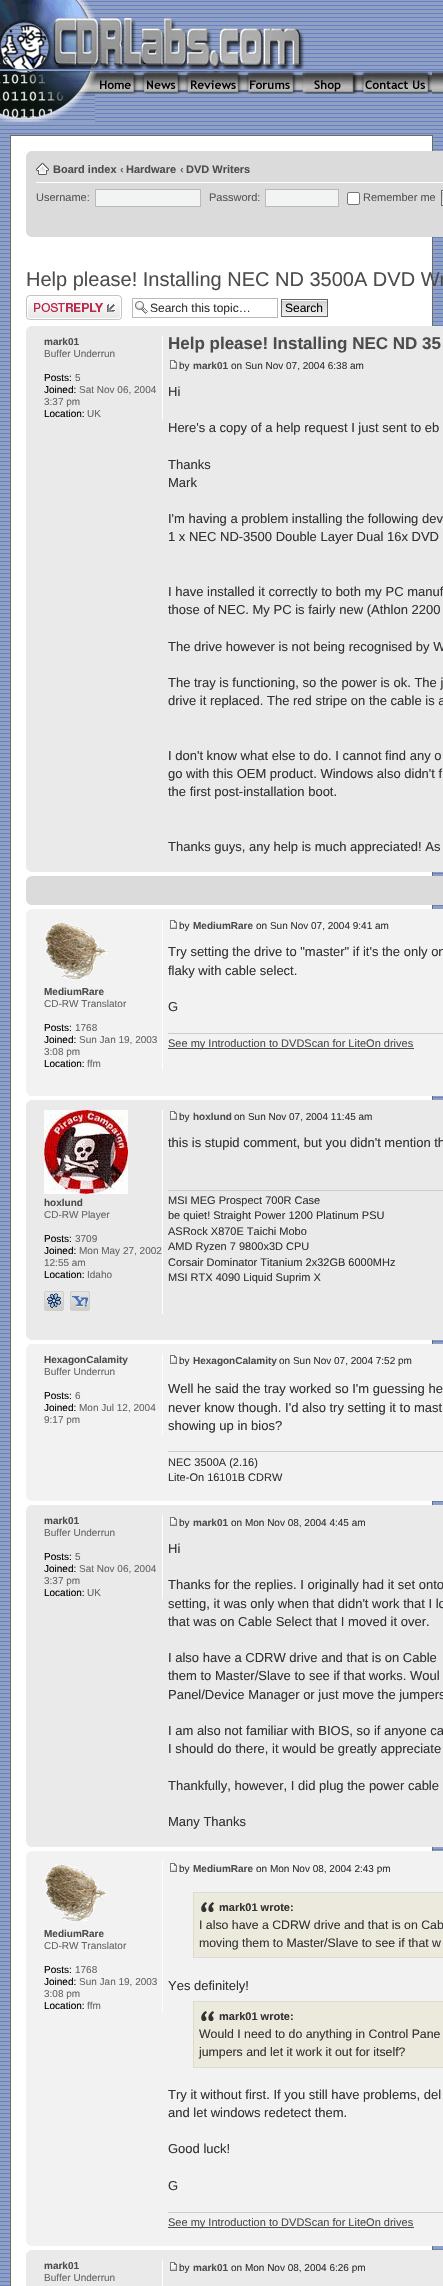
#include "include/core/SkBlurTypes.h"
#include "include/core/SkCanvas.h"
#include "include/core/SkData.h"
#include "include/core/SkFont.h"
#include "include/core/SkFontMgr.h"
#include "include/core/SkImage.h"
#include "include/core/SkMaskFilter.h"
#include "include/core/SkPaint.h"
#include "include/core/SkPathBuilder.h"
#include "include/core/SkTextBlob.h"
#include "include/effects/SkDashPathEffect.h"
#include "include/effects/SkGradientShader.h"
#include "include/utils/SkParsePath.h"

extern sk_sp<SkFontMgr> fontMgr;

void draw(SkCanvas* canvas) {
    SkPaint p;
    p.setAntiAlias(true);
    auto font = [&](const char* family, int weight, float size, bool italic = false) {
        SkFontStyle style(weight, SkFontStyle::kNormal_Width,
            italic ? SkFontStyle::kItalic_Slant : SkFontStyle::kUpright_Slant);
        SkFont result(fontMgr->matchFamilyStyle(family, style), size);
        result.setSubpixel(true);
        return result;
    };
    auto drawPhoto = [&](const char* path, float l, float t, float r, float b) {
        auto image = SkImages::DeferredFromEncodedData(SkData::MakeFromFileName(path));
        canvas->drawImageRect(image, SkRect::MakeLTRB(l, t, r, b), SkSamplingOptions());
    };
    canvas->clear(0xFFFFFFFF);
    drawPhoto("media/1.png", 0, 0, 443, 2286);
    drawPhoto("media/2.png", 0, 0, 315, 69);
    drawPhoto("media/3.png", 0, 71, 95, 122);
    drawPhoto("media/4.png", 95, 71, 139, 94);
    drawPhoto("media/5.png", 139, 71, 183, 94);
    drawPhoto("media/6.png", 183, 71, 243, 94);
    drawPhoto("media/7.png", 243, 71, 298, 94);
    drawPhoto("media/8.png", 298, 71, 358, 94);
    drawPhoto("media/9.png", 358, 71, 432, 94);
    drawPhoto("media/10.png", 432, 71, 443, 94);
    p.setColor(0xFFFFFFFF);
    canvas->drawRect(SkRect::MakeLTRB(10.5f, 135.5f, 432.5f, 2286.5f), p);
    p.setStyle(SkPaint::kStroke_Style);
    p.setStrokeWidth(1);
    p.setColor(0xFF6B6B6B);
    canvas->drawRect(SkRect::MakeLTRB(10.5f, 135.5f, 432.5f, 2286.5f), p);
    p.setStyle(SkPaint::kFill_Style);
    p.setColor(0xFFDBDBDB);
    canvas->drawRect(SkRect::MakeLTRB(26, 151, 443, 237), p);
    drawPhoto("media/11.png", 26, 151, 31, 156);
    p.setColor(0xFFFFFFFF);
    canvas->drawRect(SkRect::MakeLTRB(36, 182, 443, 183), p);
    drawPhoto("media/12.png", 36, 163, 49, 175);
    auto font1 = font("Liberation Sans", 700, 11);
    p.setColor(0xFF4D4D4D);
    canvas->drawString("Board index", 53, 173, font1, p);
    p.setColor(0xFF666666);
    canvas->drawString("‹", 120, 173, font1, p);
    p.setColor(0xFF4D4D4D);
    canvas->drawString("Hardware", 126, 173, font1, p);
    p.setColor(0xFF666666);
    canvas->drawString("‹", 180, 173, font1, p);
    p.setColor(0xFF4D4D4D);
    canvas->drawString("DVD Writers", 186, 173, font1, p);
    auto font2 = font("Liberation Sans", 400, 11);
    p.setColor(0xFF555555);
    canvas->drawString("Username:", 36, 201, font2, p);
    p.setColor(0xFFF2F3F3);
    canvas->drawRect(SkRect::MakeLTRB(95.5f, 189.5f, 200.5f, 206.5f), p);
    p.setStyle(SkPaint::kStroke_Style);
    p.setColor(0xFFBABABA);
    canvas->drawRect(SkRect::MakeLTRB(95.5f, 189.5f, 200.5f, 206.5f), p);
    p.setStyle(SkPaint::kFill_Style);
    p.setColor(0xFF555555);
    canvas->drawString("Password:", 209, 201, font2, p);
    p.setColor(0xFFF2F3F3);
    canvas->drawRect(SkRect::MakeLTRB(265.5f, 189.5f, 338.5f, 206.5f), p);
    p.setStyle(SkPaint::kStroke_Style);
    p.setColor(0xFFBABABA);
    canvas->drawRect(SkRect::MakeLTRB(265.5f, 189.5f, 338.5f, 206.5f), p);
    p.setStyle(SkPaint::kFill_Style);
    p.setColor(0xFFFFFFFF);
    canvas->drawRoundRect(SkRect::MakeLTRB(347.5f, 192.5f, 359.5f, 204.5f), 1.5f, 1.5f, p);
    p.setStyle(SkPaint::kStroke_Style);
    p.setColor(0xFF767676);
    canvas->drawRoundRect(SkRect::MakeLTRB(347.5f, 192.5f, 359.5f, 204.5f), 1.5f, 1.5f, p);
    p.setStyle(SkPaint::kFill_Style);
    p.setColor(0xFF555555);
    canvas->drawString("Remember me", 363, 201, font2, p);
    drawPhoto("media/13.png", 442, 191, 443, 205);
    p.setStyle(SkPaint::kStroke_Style);
    p.setColor(0xFF666666);
    canvas->drawRect(SkRect::MakeLTRB(441.5f, 190.5f, 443.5f, 205.5f), p);
    drawPhoto("media/14.png", 26, 232, 31, 237);
    auto font3 = font("Liberation Sans", 400, 20);
    p.setStyle(SkPaint::kFill_Style);
    p.setColor(0xFF4D4D4D);
    canvas->drawString("Help please! Installing NEC ND 3500A DVD Wr", 26, 286, font3, p);
    drawPhoto("media/15.png", 26, 295, 122, 320);
    drawPhoto("media/16.png", 135, 301, 148, 314);
    p.setStyle(SkPaint::kStroke_Style);
    p.setColor(0xFFBABABA);
    canvas->drawRect(SkRect::MakeLTRB(132.5f, 298.5f, 277.5f, 317.5f), p);
    auto font4 = font("Liberation Sans", 400, 12);
    p.setStyle(SkPaint::kFill_Style);
    p.setColor(0xFF333333);
    canvas->drawString("Search this topic…", 150, 312, font4, p);
    drawPhoto("media/17.png", 282, 300, 327, 316);
    p.setStyle(SkPaint::kStroke_Style);
    p.setColor(0xFF666666);
    canvas->drawRect(SkRect::MakeLTRB(281.5f, 299.5f, 327.5f, 316.5f), p);
    p.setStyle(SkPaint::kFill_Style);
    p.setColor(0xFF000000);
    canvas->drawString("Search", 285, 312, font4, p);
    p.setColor(0xFFEAEAEA);
    canvas->drawRect(SkRect::MakeLTRB(26, 326, 443, 872), p);
    drawPhoto("media/18.png", 26, 326, 31, 331);
    p.setColor(0xFFFFFFFF);
    canvas->drawRect(SkRect::MakeLTRB(162, 336, 163, 420), p);
    auto font5 = font("Liberation Sans", 700, 10);
    p.setColor(0xFF4D4D4D);
    canvas->drawString("mark01", 44, 345, font5, p);
    auto font6 = font("Liberation Sans", 400, 10);
    p.setColor(0xFF666666);
    canvas->drawString("Buffer Underrun", 44, 357, font6, p);
    p.setColor(0xFF000000);
    canvas->drawString("Posts:", 44, 381, font6, p);
    p.setColor(0xFF666666);
    canvas->drawString("5", 75, 381, font6, p);
    p.setColor(0xFF000000);
    canvas->drawString("Joined:", 44, 393, font6, p);
    p.setColor(0xFF666666);
    canvas->drawString("Sat Nov 06, 2004", 79, 393, font6, p);
    canvas->drawString("3:37 pm", 44, 405, font6, p);
    p.setColor(0xFF000000);
    canvas->drawString("Location:", 44, 417, font6, p);
    p.setColor(0xFF666666);
    canvas->drawString("UK", 87, 417, font6, p);
    auto font7 = font("Liberation Sans", 700, 17);
    p.setColor(0xFF4D4D4D);
    canvas->drawString("Help please! Installing NEC ND 35", 168, 349, font7, p);
    drawPhoto("media/19.png", 170, 360, 177, 369);
    p.setColor(0xFF333333);
    canvas->drawString("by", 179, 369, font6, p);
    p.setColor(0xFF4D4D4D);
    canvas->drawString("mark01", 193, 369, font5, p);
    p.setColor(0xFF333333);
    canvas->drawString("on Sun Nov 07, 2004 6:38 am", 231, 369, font6, p);
    auto font8 = font("Liberation Sans", 400, 13);
    {
        const struct { const char* s; float x, y; } items[] = {
            {"Hi", 168, 396},
            {"Here's a copy of a help request I just sent to eb", 168, 432},
            {"Thanks", 168, 469},
            {"Mark", 168, 487},
            {"I'm having a problem installing the following dev", 168, 523},
            {"1 x NEC ND-3500 Double Layer Dual 16x DVD", 168, 541},
            {"I have installed it correctly to both my PC manuf", 168, 596},
            {"those of NEC. My PC is fairly new (Athlon 2200", 168, 614},
            {"The drive however is not being recognised by W", 168, 651},
            {"The tray is functioning, so the power is ok. The j", 168, 687},
            {"drive it replaced. The red stripe on the cable is a", 168, 705},
            {"I don't know what else to do. I cannot find any o", 168, 760},
            {"go with this OEM product. Windows also didn't f", 168, 778},
            {"the first post-installation boot.", 168, 796},
            {"Thanks guys, any help is much appreciated! As", 168, 851},
        };
        for (auto [s, x, y] : items) {
            canvas->drawString(s, x, y, font8, p);
        }
    }
    drawPhoto("media/20.png", 26, 867, 31, 872);
    p.setColor(0xFFDBDBDB);
    canvas->drawRect(SkRect::MakeLTRB(26, 876, 443, 905), p);
    drawPhoto("media/11.png", 26, 876, 31, 881);
    drawPhoto("media/14.png", 26, 900, 31, 905);
    p.setColor(0xFFF2F2F2);
    canvas->drawRect(SkRect::MakeLTRB(26, 909, 443, 1096), p);
    drawPhoto("media/21.png", 26, 909, 30, 913);
    p.setColor(0xFFFFFFFF);
    canvas->drawRect(SkRect::MakeLTRB(162, 919, 163, 1070), p);
    drawPhoto("media/22.png", 44, 922, 108, 980);
    p.setColor(0xFF4D4D4D);
    canvas->drawString("MediumRare", 44, 995, font5, p);
    p.setColor(0xFF666666);
    canvas->drawString("CD-RW Translator", 44, 1007, font6, p);
    p.setColor(0xFF000000);
    canvas->drawString("Posts:", 44, 1031, font6, p);
    p.setColor(0xFF666666);
    canvas->drawString("1768", 75, 1031, font6, p);
    p.setColor(0xFF000000);
    canvas->drawString("Joined:", 44, 1043, font6, p);
    p.setColor(0xFF666666);
    canvas->drawString("Sun Jan 19, 2003", 79, 1043, font6, p);
    canvas->drawString("3:08 pm", 44, 1055, font6, p);
    p.setColor(0xFF000000);
    canvas->drawString("Location:", 44, 1067, font6, p);
    p.setColor(0xFF666666);
    canvas->drawString("ffm", 87, 1067, font6, p);
    drawPhoto("media/23.png", 170, 920, 177, 929);
    p.setColor(0xFF333333);
    canvas->drawString("by", 179, 929, font6, p);
    p.setColor(0xFF4D4D4D);
    canvas->drawString("MediumRare", 193, 929, font5, p);
    p.setColor(0xFF333333);
    canvas->drawString("on Sun Nov 07, 2004 9:41 am", 256, 929, font6, p);
    {
        const struct { const char* s; float x, y; } items[] = {
            {"Try setting the drive to \"master\" if it's the only on", 168, 956},
            {"flaky with cable select.", 168, 975},
            {"G", 168, 1011},
        };
        for (auto [s, x, y] : items) {
            canvas->drawString(s, x, y, font8, p);
        }
    }
    p.setColor(0xFFCCCCCC);
    canvas->drawRect(SkRect::MakeLTRB(168, 1033, 443, 1034), p);
    p.setColor(0xFF4D4D4D);
    canvas->drawRect(SkRect::MakeLTRB(168, 1048, 414, 1049), p);
    canvas->drawString("See my Introduction to DVDScan for LiteOn drives", 168, 1047, font2, p);
    drawPhoto("media/24.png", 26, 1092, 30, 1096);
    p.setColor(0xFFEAEAEA);
    canvas->drawRect(SkRect::MakeLTRB(26, 1100, 443, 1340), p);
    drawPhoto("media/18.png", 26, 1100, 31, 1105);
    p.setColor(0xFFFFFFFF);
    canvas->drawRect(SkRect::MakeLTRB(162, 1110, 163, 1314), p);
    drawPhoto("media/25.png", 44, 1110, 128, 1194);
    p.setColor(0xFF4D4D4D);
    canvas->drawString("hoxlund", 44, 1206, font5, p);
    p.setColor(0xFF666666);
    canvas->drawString("CD-RW Player", 44, 1218, font6, p);
    p.setColor(0xFF000000);
    canvas->drawString("Posts:", 44, 1242, font6, p);
    p.setColor(0xFF666666);
    canvas->drawString("3709", 75, 1242, font6, p);
    p.setColor(0xFF000000);
    canvas->drawString("Joined:", 44, 1254, font6, p);
    p.setColor(0xFF666666);
    canvas->drawString("Mon May 27, 2002", 79, 1254, font6, p);
    canvas->drawString("12:55 am", 44, 1266, font6, p);
    p.setColor(0xFF000000);
    canvas->drawString("Location:", 44, 1278, font6, p);
    p.setColor(0xFF666666);
    canvas->drawString("Idaho", 87, 1278, font6, p);
    drawPhoto("media/26.png", 44, 1291, 64, 1311);
    drawPhoto("media/27.png", 70, 1291, 90, 1311);
    drawPhoto("media/19.png", 170, 1111, 177, 1120);
    p.setColor(0xFF333333);
    canvas->drawString("by", 179, 1120, font6, p);
    p.setColor(0xFF4D4D4D);
    canvas->drawString("hoxlund", 193, 1120, font5, p);
    p.setColor(0xFF333333);
    canvas->drawString("on Sun Nov 07, 2004 11:45 am", 234, 1120, font6, p);
    canvas->drawString("this is stupid comment, but you didn't mention th", 168, 1147, font8, p);
    p.setColor(0xFFCCCCCC);
    canvas->drawRect(SkRect::MakeLTRB(168, 1190, 443, 1191), p);
    p.setColor(0xFF333333);
    {
        const struct { const char* s; float x, y; } items[] = {
            {"MSI MEG Prospect 700R Case", 168, 1204},
            {"be quiet! Straight Power 1200 Platinum PSU", 168, 1219},
            {"ASRock X870E Taichi Mobo", 168, 1235},
            {"AMD Ryzen 7 9800x3D CPU", 168, 1250},
            {"Corsair Dominator Titanium 2x32GB 6000MHz", 168, 1266},
            {"MSI RTX 4090 Liquid Suprim X", 168, 1281},
        };
        for (auto [s, x, y] : items) {
            canvas->drawString(s, x, y, font2, p);
        }
    }
    drawPhoto("media/20.png", 26, 1335, 31, 1340);
    p.setColor(0xFFF2F2F2);
    canvas->drawRect(SkRect::MakeLTRB(26, 1344, 443, 1501), p);
    drawPhoto("media/21.png", 26, 1344, 30, 1348);
    p.setColor(0xFFFFFFFF);
    canvas->drawRect(SkRect::MakeLTRB(162, 1354, 163, 1434), p);
    p.setColor(0xFF4D4D4D);
    canvas->drawString("HexagonCalamity", 44, 1363, font5, p);
    p.setColor(0xFF666666);
    canvas->drawString("Buffer Underrun", 44, 1375, font6, p);
    p.setColor(0xFF000000);
    canvas->drawString("Posts:", 44, 1399, font6, p);
    p.setColor(0xFF666666);
    canvas->drawString("6", 75, 1399, font6, p);
    p.setColor(0xFF000000);
    canvas->drawString("Joined:", 44, 1411, font6, p);
    p.setColor(0xFF666666);
    canvas->drawString("Mon Jul 12, 2004", 79, 1411, font6, p);
    canvas->drawString("9:17 pm", 44, 1423, font6, p);
    drawPhoto("media/23.png", 170, 1355, 177, 1364);
    p.setColor(0xFF333333);
    canvas->drawString("by", 179, 1364, font6, p);
    p.setColor(0xFF4D4D4D);
    canvas->drawString("HexagonCalamity", 193, 1364, font5, p);
    p.setColor(0xFF333333);
    canvas->drawString("on Sun Nov 07, 2004 7:52 pm", 279, 1364, font6, p);
    {
        const struct { const char* s; float x, y; } items[] = {
            {"Well he said the tray worked so I'm guessing he", 168, 1393},
            {"never know though. I'd also try setting it to mast", 168, 1412},
            {"showing up in bios?", 168, 1430},
        };
        for (auto [s, x, y] : items) {
            canvas->drawString(s, x, y, font8, p);
        }
    }
    p.setColor(0xFFCCCCCC);
    canvas->drawRect(SkRect::MakeLTRB(168, 1451, 443, 1452), p);
    p.setColor(0xFF333333);
    canvas->drawString("NEC 3500A (2.16)", 168, 1466, font2, p);
    canvas->drawString("Lite-On 16101B CDRW", 168, 1481, font2, p);
    drawPhoto("media/24.png", 26, 1497, 30, 1501);
    p.setColor(0xFFEAEAEA);
    canvas->drawRect(SkRect::MakeLTRB(26, 1505, 443, 1847), p);
    drawPhoto("media/18.png", 26, 1505, 31, 1510);
    p.setColor(0xFFFFFFFF);
    canvas->drawRect(SkRect::MakeLTRB(162, 1515, 163, 1599), p);
    p.setColor(0xFF4D4D4D);
    canvas->drawString("mark01", 44, 1524, font5, p);
    p.setColor(0xFF666666);
    canvas->drawString("Buffer Underrun", 44, 1536, font6, p);
    p.setColor(0xFF000000);
    canvas->drawString("Posts:", 44, 1560, font6, p);
    p.setColor(0xFF666666);
    canvas->drawString("5", 75, 1560, font6, p);
    p.setColor(0xFF000000);
    canvas->drawString("Joined:", 44, 1572, font6, p);
    p.setColor(0xFF666666);
    canvas->drawString("Sat Nov 06, 2004", 79, 1572, font6, p);
    canvas->drawString("3:37 pm", 44, 1584, font6, p);
    p.setColor(0xFF000000);
    canvas->drawString("Location:", 44, 1596, font6, p);
    p.setColor(0xFF666666);
    canvas->drawString("UK", 87, 1596, font6, p);
    drawPhoto("media/19.png", 170, 1517, 177, 1526);
    p.setColor(0xFF333333);
    canvas->drawString("by", 179, 1526, font6, p);
    p.setColor(0xFF4D4D4D);
    canvas->drawString("mark01", 193, 1526, font5, p);
    p.setColor(0xFF333333);
    canvas->drawString("on Mon Nov 08, 2004 4:45 am", 231, 1526, font6, p);
    {
        const struct { const char* s; float x, y; } items[] = {
            {"Hi", 168, 1553},
            {"Thanks for the replies. I originally had it set onto", 168, 1589},
            {"setting, it was only when that didn't work that I lo", 168, 1608},
            {"that was on Cable Select that I moved it over.", 168, 1626},
            {"I also have a CDRW drive and that is on Cable", 168, 1662},
            {"them to Master/Slave to see if that works. Woul", 168, 1680},
            {"Panel/Device Manager or just move the jumpers", 168, 1699},
            {"I am also not familiar with BIOS, so if anyone ca", 168, 1735},
            {"I should do there, it would be greatly appreciate", 168, 1753},
            {"Thankfully, however, I did plug the power cable", 168, 1790},
            {"Many Thanks", 168, 1826},
        };
        for (auto [s, x, y] : items) {
            canvas->drawString(s, x, y, font8, p);
        }
    }
    drawPhoto("media/20.png", 26, 1842, 31, 1847);
    p.setColor(0xFFF2F2F2);
    canvas->drawRect(SkRect::MakeLTRB(26, 1851, 443, 2246), p);
    drawPhoto("media/21.png", 26, 1851, 30, 1855);
    p.setColor(0xFFFFFFFF);
    canvas->drawRect(SkRect::MakeLTRB(162, 1861, 163, 2012), p);
    drawPhoto("media/22.png", 44, 1864, 108, 1922);
    p.setColor(0xFF4D4D4D);
    canvas->drawString("MediumRare", 44, 1937, font5, p);
    p.setColor(0xFF666666);
    canvas->drawString("CD-RW Translator", 44, 1949, font6, p);
    p.setColor(0xFF000000);
    canvas->drawString("Posts:", 44, 1973, font6, p);
    p.setColor(0xFF666666);
    canvas->drawString("1768", 75, 1973, font6, p);
    p.setColor(0xFF000000);
    canvas->drawString("Joined:", 44, 1985, font6, p);
    p.setColor(0xFF666666);
    canvas->drawString("Sun Jan 19, 2003", 79, 1985, font6, p);
    canvas->drawString("3:08 pm", 44, 1997, font6, p);
    p.setColor(0xFF000000);
    canvas->drawString("Location:", 44, 2009, font6, p);
    p.setColor(0xFF666666);
    canvas->drawString("ffm", 87, 2009, font6, p);
    drawPhoto("media/23.png", 170, 1863, 177, 1872);
    p.setColor(0xFF333333);
    canvas->drawString("by", 179, 1872, font6, p);
    p.setColor(0xFF4D4D4D);
    canvas->drawString("MediumRare", 193, 1872, font5, p);
    p.setColor(0xFF333333);
    canvas->drawString("on Mon Nov 08, 2004 2:43 pm", 256, 1872, font6, p);
    p.setColor(0xFFEBEADD);
    canvas->drawRect(SkRect::MakeLTRB(194, 1893, 443, 1957), p);
    drawPhoto("media/28.png", 201, 1902, 215, 1912);
    p.setStyle(SkPaint::kStroke_Style);
    p.setColor(0xFFDBDBCE);
    canvas->drawRect(SkRect::MakeLTRB(193.5f, 1892.5f, 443.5f, 1957.5f), p);
    p.setStyle(SkPaint::kFill_Style);
    p.setColor(0xFF333333);
    canvas->drawString("mark01 wrote:", 219, 1911, font1, p);
    auto font9 = font("Liberation Sans", 400, 12.3f);
    canvas->drawString("I also have a CDRW drive and that is on Cab", 199, 1929, font9, p);
    canvas->drawString("moving them to Master/Slave to see if that w", 199, 1947, font9, p);
    canvas->drawString("Yes definitely!", 168, 1990, font8, p);
    p.setColor(0xFFEBEADD);
    canvas->drawRect(SkRect::MakeLTRB(194, 2002, 443, 2067), p);
    drawPhoto("media/28.png", 201, 2011, 215, 2021);
    p.setStyle(SkPaint::kStroke_Style);
    p.setColor(0xFFDBDBCE);
    canvas->drawRect(SkRect::MakeLTRB(193.5f, 2001.5f, 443.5f, 2067.5f), p);
    p.setStyle(SkPaint::kFill_Style);
    p.setColor(0xFF333333);
    canvas->drawString("mark01 wrote:", 219, 2020, font1, p);
    canvas->drawString("Would I need to do anything in Control Pane", 199, 2038, font9, p);
    canvas->drawString("jumpers and let it work it out for itself?", 199, 2056, font9, p);
    {
        const struct { const char* s; float x, y; } items[] = {
            {"Try it without first. If you still have problems, del", 168, 2099},
            {"and let windows redetect them.", 168, 2117},
            {"Good luck!", 168, 2153},
            {"G", 168, 2190},
        };
        for (auto [s, x, y] : items) {
            canvas->drawString(s, x, y, font8, p);
        }
    }
    p.setColor(0xFFCCCCCC);
    canvas->drawRect(SkRect::MakeLTRB(168, 2212, 443, 2213), p);
    p.setColor(0xFF4D4D4D);
    canvas->drawRect(SkRect::MakeLTRB(168, 2227, 414, 2228), p);
    canvas->drawString("See my Introduction to DVDScan for LiteOn drives", 168, 2226, font2, p);
    drawPhoto("media/24.png", 26, 2242, 30, 2246);
    p.setColor(0xFFEAEAEA);
    canvas->drawRect(SkRect::MakeLTRB(26, 2250, 443, 2286), p);
    drawPhoto("media/18.png", 26, 2250, 31, 2255);
    p.setColor(0xFFFFFFFF);
    canvas->drawRect(SkRect::MakeLTRB(162, 2260, 163, 2286), p);
    p.setColor(0xFF4D4D4D);
    canvas->drawString("mark01", 44, 2269, font5, p);
    p.setColor(0xFF666666);
    canvas->drawString("Buffer Underrun", 44, 2281, font6, p);
    drawPhoto("media/19.png", 170, 2262, 177, 2271);
    p.setColor(0xFF333333);
    canvas->drawString("by", 179, 2271, font6, p);
    p.setColor(0xFF4D4D4D);
    canvas->drawString("mark01", 193, 2271, font5, p);
    p.setColor(0xFF333333);
    canvas->drawString("on Mon Nov 08, 2004 6:26 pm", 231, 2271, font6, p);
}
